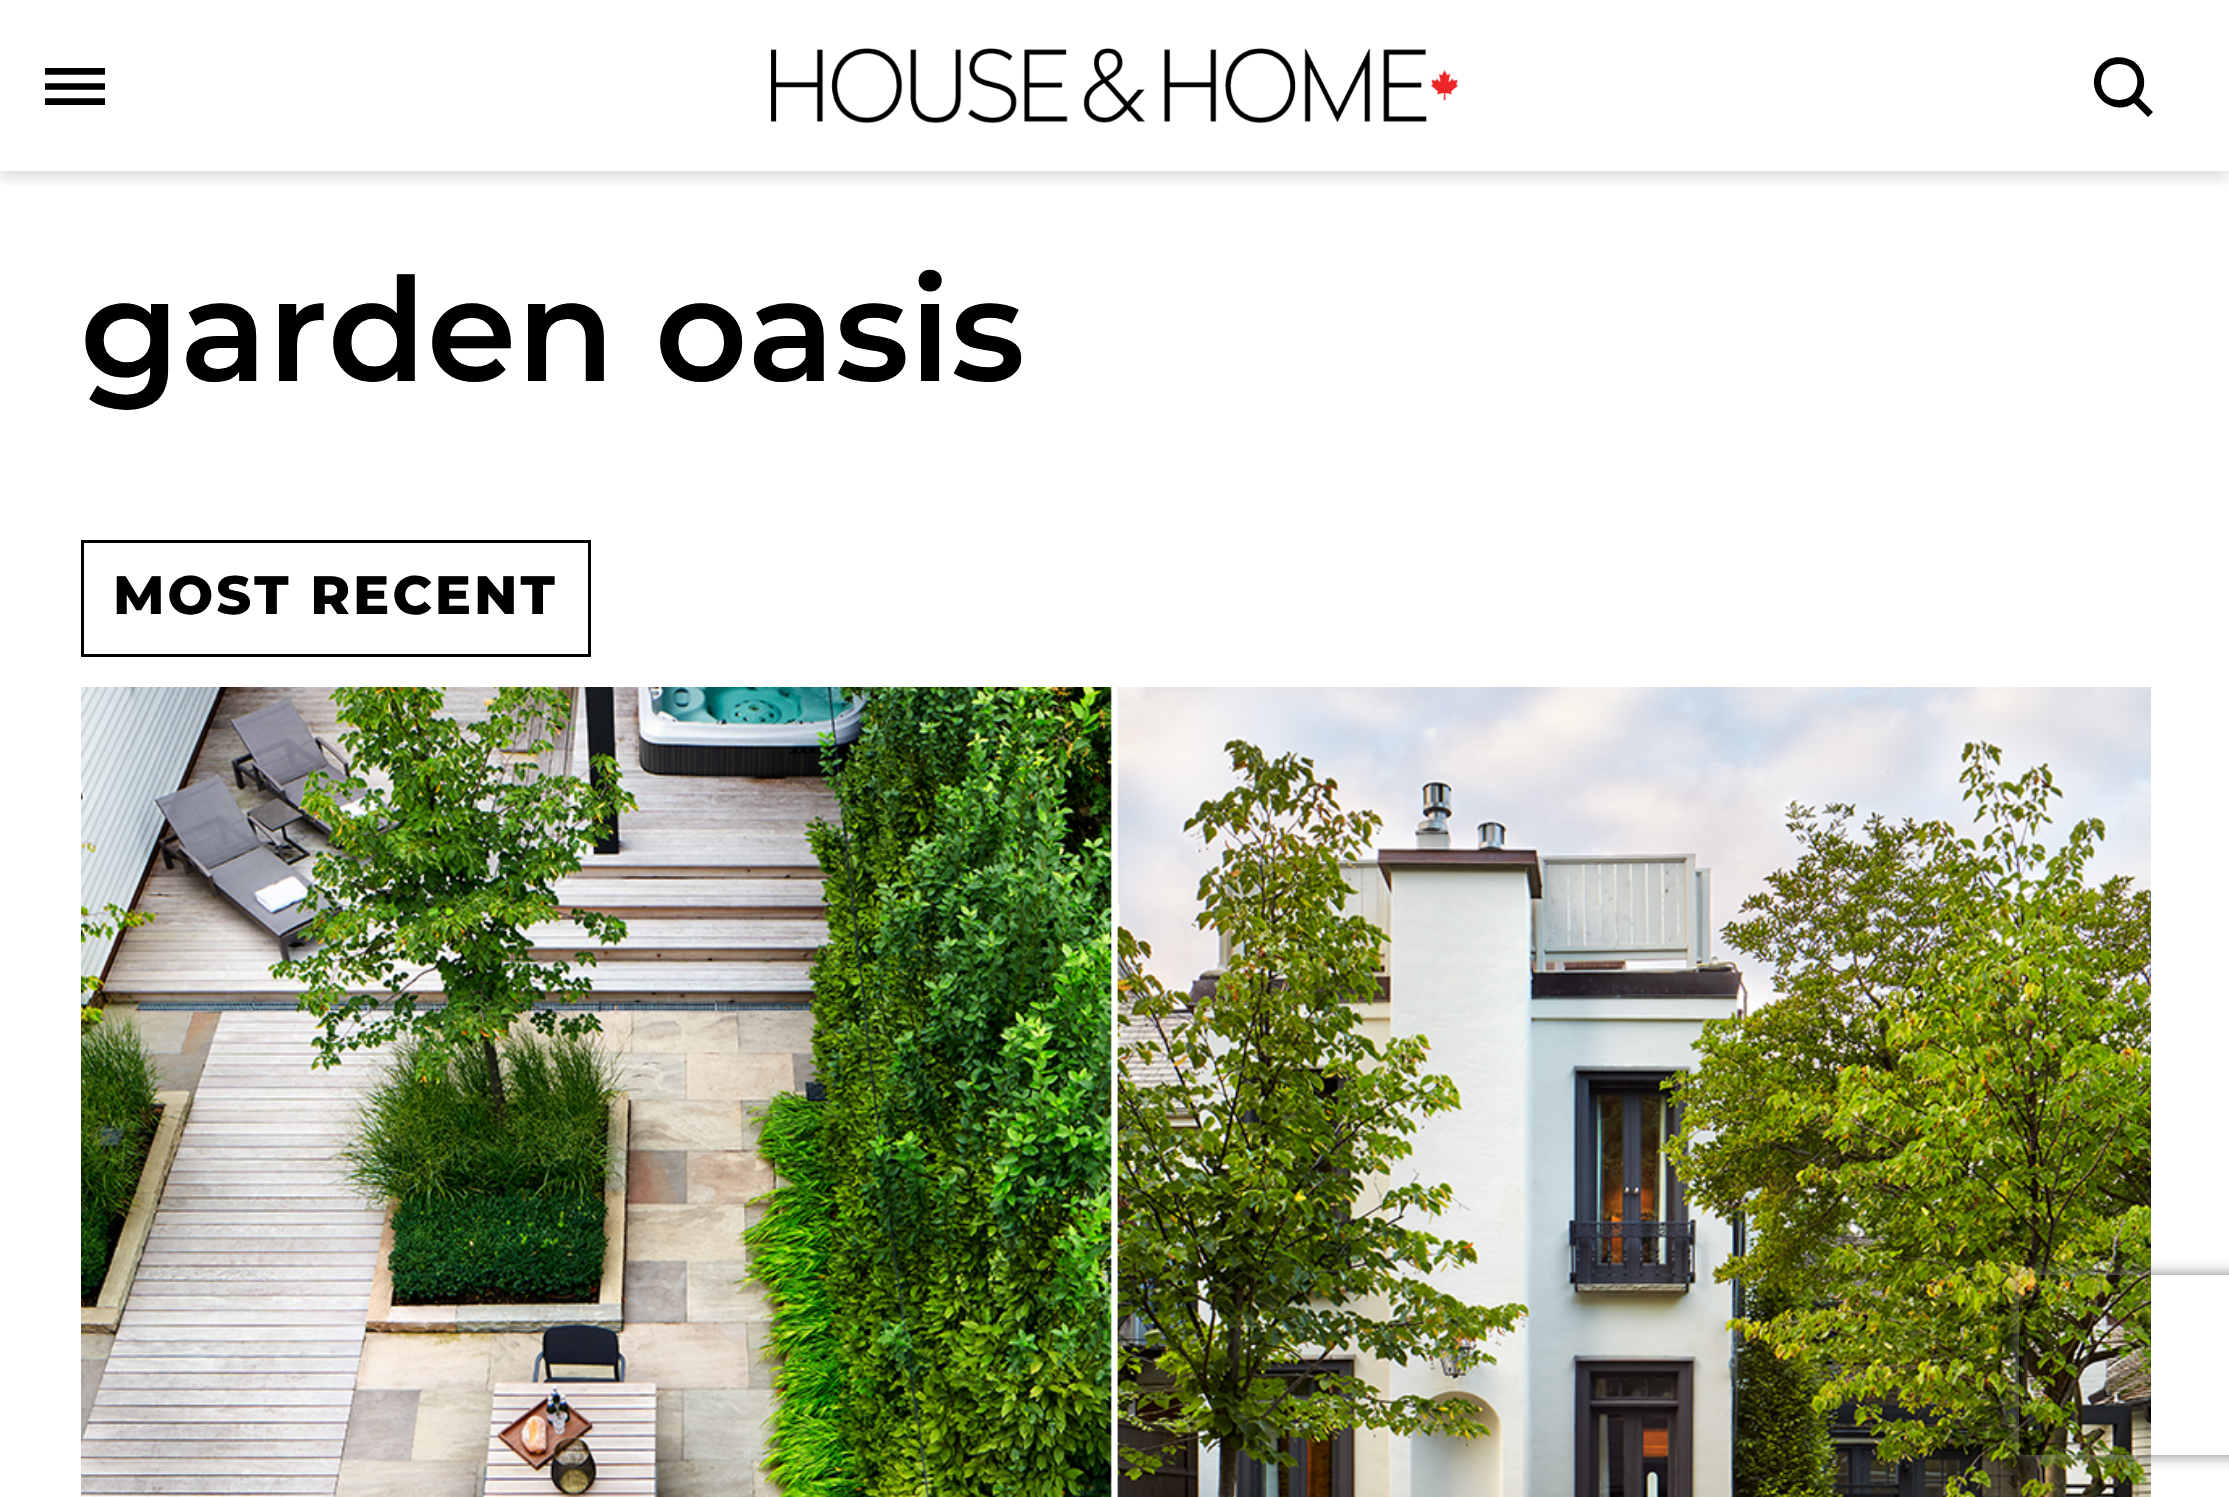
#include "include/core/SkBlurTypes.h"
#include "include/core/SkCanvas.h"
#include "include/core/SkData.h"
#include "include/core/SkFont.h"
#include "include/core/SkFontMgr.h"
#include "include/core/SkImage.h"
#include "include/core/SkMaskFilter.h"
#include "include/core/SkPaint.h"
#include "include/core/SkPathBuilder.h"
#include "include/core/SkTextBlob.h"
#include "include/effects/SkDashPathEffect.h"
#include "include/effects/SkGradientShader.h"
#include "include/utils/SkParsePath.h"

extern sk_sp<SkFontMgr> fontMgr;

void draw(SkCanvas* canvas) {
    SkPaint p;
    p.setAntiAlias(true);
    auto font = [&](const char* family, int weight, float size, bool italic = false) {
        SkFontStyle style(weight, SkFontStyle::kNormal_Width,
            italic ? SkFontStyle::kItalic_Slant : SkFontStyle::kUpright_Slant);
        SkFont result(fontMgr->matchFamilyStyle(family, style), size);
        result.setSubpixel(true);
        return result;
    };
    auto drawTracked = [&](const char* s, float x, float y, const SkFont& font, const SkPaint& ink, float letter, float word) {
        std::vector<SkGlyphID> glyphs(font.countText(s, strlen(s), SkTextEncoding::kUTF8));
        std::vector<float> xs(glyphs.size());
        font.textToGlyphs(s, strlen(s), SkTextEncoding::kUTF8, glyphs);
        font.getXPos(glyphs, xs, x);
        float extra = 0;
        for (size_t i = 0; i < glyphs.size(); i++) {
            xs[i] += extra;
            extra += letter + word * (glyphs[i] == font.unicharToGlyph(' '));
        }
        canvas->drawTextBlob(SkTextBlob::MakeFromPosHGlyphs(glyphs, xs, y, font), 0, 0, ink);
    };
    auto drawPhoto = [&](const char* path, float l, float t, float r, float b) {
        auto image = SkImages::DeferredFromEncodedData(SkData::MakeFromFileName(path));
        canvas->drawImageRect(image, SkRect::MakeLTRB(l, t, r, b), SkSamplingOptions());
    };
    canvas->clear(0xFFFFFFFF);
    canvas->save();
    canvas->clipRect(SkRect::MakeLTRB(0, 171, 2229, 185));
    p.setColor(0x26000000);
    p.setMaskFilter(SkMaskFilter::MakeBlur(kNormal_SkBlurStyle, 7.5f));
    canvas->drawRect(SkRect::MakeLTRB(0, 6, 2229, 177), p);
    p.setMaskFilter(nullptr);
    canvas->restore();
    drawPhoto("media/1.png", 45, 68, 105, 105);
    drawPhoto("media/2.png", 771, 48, 1458, 124);
    p.setColor(0xFF000000);
    canvas->drawPath(SkPathBuilder().moveTo(2153, 112).lineTo(2139, 98).cubicTo(2148, 86, 2145, 69, 2133, 61).cubicTo(2126, 57, 2117, 56, 2109, 59).cubicTo(2103, 62, 2099, 66, 2096, 72).cubicTo(2086, 96, 2114, 117, 2134, 103).lineTo(2148, 117).close().moveTo(2119, 100).cubicTo(2095, 100, 2095, 64, 2119, 64).cubicTo(2144, 64, 2143, 100, 2119, 100).close().detach(), p);
    auto font1 = font("Montserrat", 600, 144);
    canvas->drawString("garden oasis", 80, 381, font1, p);
    p.setStyle(SkPaint::kStroke_Style);
    p.setStrokeWidth(3);
    canvas->drawRect(SkRect::MakeLTRB(82.5f, 541.5f, 589.5f, 655.5f), p);
    auto font2 = font("Montserrat", 800, 54);
    p.setStyle(SkPaint::kFill_Style);
    drawTracked("MOST RECENT", 113, 614, font2, p, 3, 0);
    drawPhoto("media/3.png", 81, 687, 2151, 1497);
    canvas->save();
    canvas->clipPath(SkPathBuilder(SkPathFillType::kEvenOdd).moveTo(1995, 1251).lineTo(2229, 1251).lineTo(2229, 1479).lineTo(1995, 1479).close().moveTo(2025, 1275).lineTo(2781, 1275).cubicTo(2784.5f, 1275, 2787, 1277.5f, 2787, 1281).lineTo(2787, 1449).cubicTo(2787, 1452.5f, 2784.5f, 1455, 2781, 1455).lineTo(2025, 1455).cubicTo(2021.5f, 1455, 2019, 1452.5f, 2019, 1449).lineTo(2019, 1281).cubicTo(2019, 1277.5f, 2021.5f, 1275, 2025, 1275).close().detach(), true);
    p.setColor(0xFF808080);
    p.setMaskFilter(SkMaskFilter::MakeBlur(kNormal_SkBlurStyle, 7.5f));
    canvas->drawRoundRect(SkRect::MakeLTRB(2019, 1275, 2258, 1455), 6, 6, p);
    p.setMaskFilter(nullptr);
    canvas->restore();
}
